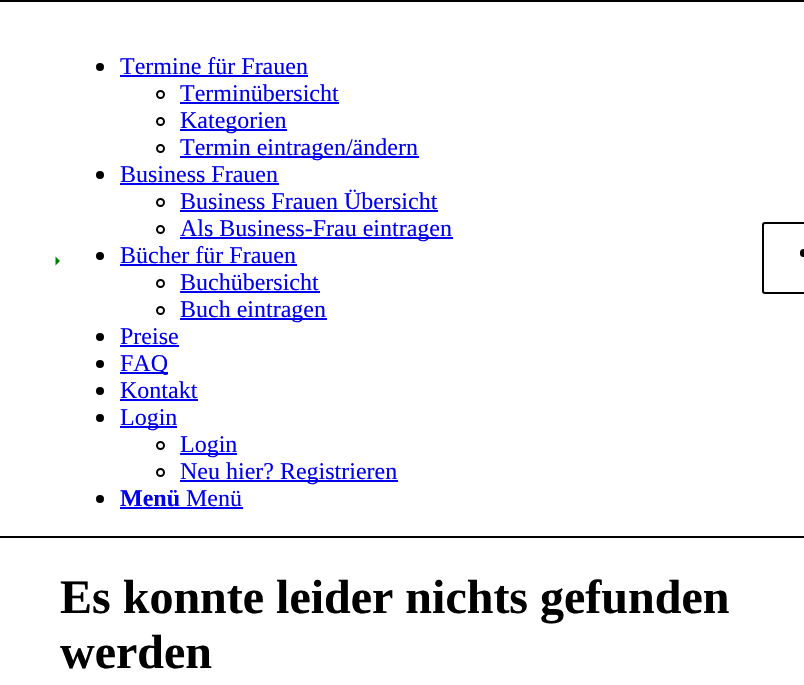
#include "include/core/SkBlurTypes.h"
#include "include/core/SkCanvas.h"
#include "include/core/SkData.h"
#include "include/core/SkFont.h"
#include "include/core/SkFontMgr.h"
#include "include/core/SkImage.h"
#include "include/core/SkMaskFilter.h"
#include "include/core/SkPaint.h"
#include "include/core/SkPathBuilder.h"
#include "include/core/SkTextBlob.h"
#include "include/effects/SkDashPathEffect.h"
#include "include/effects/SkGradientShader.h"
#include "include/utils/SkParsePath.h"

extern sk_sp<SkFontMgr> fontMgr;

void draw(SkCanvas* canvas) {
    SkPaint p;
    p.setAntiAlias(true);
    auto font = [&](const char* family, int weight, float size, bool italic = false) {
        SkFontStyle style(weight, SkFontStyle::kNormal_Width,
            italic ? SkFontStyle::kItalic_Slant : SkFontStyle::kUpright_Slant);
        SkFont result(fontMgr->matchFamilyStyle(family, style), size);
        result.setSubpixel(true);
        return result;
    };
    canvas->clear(0xFFFFFFFF);
    p.setColor(0xFF000000);
    canvas->drawRect(SkRect::MakeLTRB(0, 0, 804, 2), p);
    canvas->drawCircle(100, 67, 4, p);
    auto font1 = font("Liberation Serif", 400, 24);
    p.setColor(0xFF0000EE);
    canvas->drawString("Termine für Frauen", 120, 74, font1, p);
    canvas->drawRect(SkRect::MakeLTRB(120, 75, 308, 77), p);
    p.setStyle(SkPaint::kStroke_Style);
    p.setStrokeWidth(2);
    p.setColor(0xFF000000);
    canvas->drawCircle(160.5f, 94.5f, 3.5f, p);
    p.setStyle(SkPaint::kFill_Style);
    p.setColor(0xFF0000EE);
    canvas->drawString("Terminübersicht", 180, 101, font1, p);
    canvas->drawRect(SkRect::MakeLTRB(180, 102, 339, 104), p);
    p.setStyle(SkPaint::kStroke_Style);
    p.setColor(0xFF000000);
    canvas->drawCircle(160.5f, 121.5f, 3.5f, p);
    p.setStyle(SkPaint::kFill_Style);
    p.setColor(0xFF0000EE);
    canvas->drawRect(SkRect::MakeLTRB(180, 129, 287, 131), p);
    canvas->drawString("Kategorien", 180, 128, font1, p);
    p.setStyle(SkPaint::kStroke_Style);
    p.setColor(0xFF000000);
    canvas->drawCircle(160.5f, 148.5f, 3.5f, p);
    p.setStyle(SkPaint::kFill_Style);
    p.setColor(0xFF0000EE);
    canvas->drawRect(SkRect::MakeLTRB(180, 156, 419, 158), p);
    canvas->drawString("Termin eintragen/ändern", 180, 155, font1, p);
    p.setColor(0xFF000000);
    canvas->drawCircle(100, 175, 4, p);
    p.setColor(0xFF0000EE);
    canvas->drawString("Business Frauen", 120, 182, font1, p);
    canvas->drawRect(SkRect::MakeLTRB(120, 183, 279, 185), p);
    p.setStyle(SkPaint::kStroke_Style);
    p.setColor(0xFF000000);
    canvas->drawCircle(160.5f, 202.5f, 3.5f, p);
    p.setStyle(SkPaint::kFill_Style);
    p.setColor(0xFF0000EE);
    canvas->drawString("Business Frauen Übersicht", 180, 209, font1, p);
    canvas->drawRect(SkRect::MakeLTRB(180, 210, 438, 212), p);
    p.setStyle(SkPaint::kStroke_Style);
    p.setColor(0xFF000000);
    canvas->drawCircle(160.5f, 229.5f, 3.5f, p);
    p.setStyle(SkPaint::kFill_Style);
    p.setColor(0xFF0000EE);
    canvas->drawRect(SkRect::MakeLTRB(180, 237, 453, 239), p);
    canvas->drawString("Als Business-Frau eintragen", 180, 236, font1, p);
    p.setColor(0xFF000000);
    canvas->drawCircle(100, 256, 4, p);
    p.setColor(0xFF0000EE);
    canvas->drawString("Bücher für Frauen", 120, 263, font1, p);
    canvas->drawRect(SkRect::MakeLTRB(120, 264, 297, 266), p);
    p.setStyle(SkPaint::kStroke_Style);
    p.setColor(0xFF000000);
    canvas->drawCircle(160.5f, 283.5f, 3.5f, p);
    p.setStyle(SkPaint::kFill_Style);
    p.setColor(0xFF0000EE);
    canvas->drawString("Buchübersicht", 180, 290, font1, p);
    canvas->drawRect(SkRect::MakeLTRB(180, 291, 320, 293), p);
    p.setStyle(SkPaint::kStroke_Style);
    p.setColor(0xFF000000);
    canvas->drawCircle(160.5f, 310.5f, 3.5f, p);
    p.setStyle(SkPaint::kFill_Style);
    p.setColor(0xFF0000EE);
    canvas->drawRect(SkRect::MakeLTRB(180, 318, 327, 320), p);
    canvas->drawString("Buch eintragen", 180, 317, font1, p);
    p.setColor(0xFF000000);
    canvas->drawCircle(100, 337, 4, p);
    p.setColor(0xFF0000EE);
    canvas->drawString("Preise", 120, 344, font1, p);
    canvas->drawRect(SkRect::MakeLTRB(120, 345, 179, 347), p);
    p.setColor(0xFF000000);
    canvas->drawCircle(100, 364, 4, p);
    p.setColor(0xFF0000EE);
    canvas->drawRect(SkRect::MakeLTRB(120, 372, 168, 374), p);
    canvas->drawString("FAQ", 120, 371, font1, p);
    p.setColor(0xFF000000);
    canvas->drawCircle(100, 391, 4, p);
    p.setColor(0xFF0000EE);
    canvas->drawString("Kontakt", 120, 398, font1, p);
    canvas->drawRect(SkRect::MakeLTRB(120, 399, 198, 401), p);
    p.setColor(0xFF000000);
    canvas->drawCircle(100, 418, 4, p);
    p.setColor(0xFF0000EE);
    canvas->drawRect(SkRect::MakeLTRB(120, 426, 177, 428), p);
    canvas->drawString("Login", 120, 425, font1, p);
    p.setStyle(SkPaint::kStroke_Style);
    p.setColor(0xFF000000);
    canvas->drawCircle(160.5f, 445.5f, 3.5f, p);
    p.setStyle(SkPaint::kFill_Style);
    p.setColor(0xFF0000EE);
    canvas->drawRect(SkRect::MakeLTRB(180, 453, 237, 455), p);
    canvas->drawString("Login", 180, 452, font1, p);
    p.setStyle(SkPaint::kStroke_Style);
    p.setColor(0xFF000000);
    canvas->drawCircle(160.5f, 472.5f, 3.5f, p);
    p.setStyle(SkPaint::kFill_Style);
    p.setColor(0xFF008000);
    canvas->drawPath(SkPathBuilder().moveTo(55.5f, 265.5f).lineTo(55.5f, 256.5f).lineTo(60, 261).close().detach(), p);
    p.setColor(0xFF0000EE);
    canvas->drawRect(SkRect::MakeLTRB(180, 480, 398, 482), p);
    canvas->drawString("Neu hier? Registrieren", 180, 479, font1, p);
    p.setColor(0xFF000000);
    canvas->drawCircle(100, 499, 4, p);
    auto font2 = font("Liberation Serif", 700, 24);
    p.setColor(0xFF0000EE);
    canvas->drawString("Menü", 120, 506, font2, p);
    canvas->drawString("Menü", 186, 506, font1, p);
    canvas->drawRect(SkRect::MakeLTRB(120, 507, 243, 509), p);
    p.setStyle(SkPaint::kStroke_Style);
    p.setColor(0xFF000000);
    canvas->drawRoundRect(SkRect::MakeLTRB(763, 223, 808, 293), 2, 2, p);
    p.setStyle(SkPaint::kFill_Style);
    canvas->drawRoundRect(SkRect::MakeLTRB(800, 249, 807, 257), 3.5f, 3.5f, p);
    canvas->drawRect(SkRect::MakeLTRB(0, 536, 804, 538), p);
    auto font3 = font("Liberation Serif", 700, 48);
    canvas->drawString("Es konnte leider nichts gefunden", 60, 613, font3, p);
    canvas->drawString("werden", 60, 668, font3, p);
}
